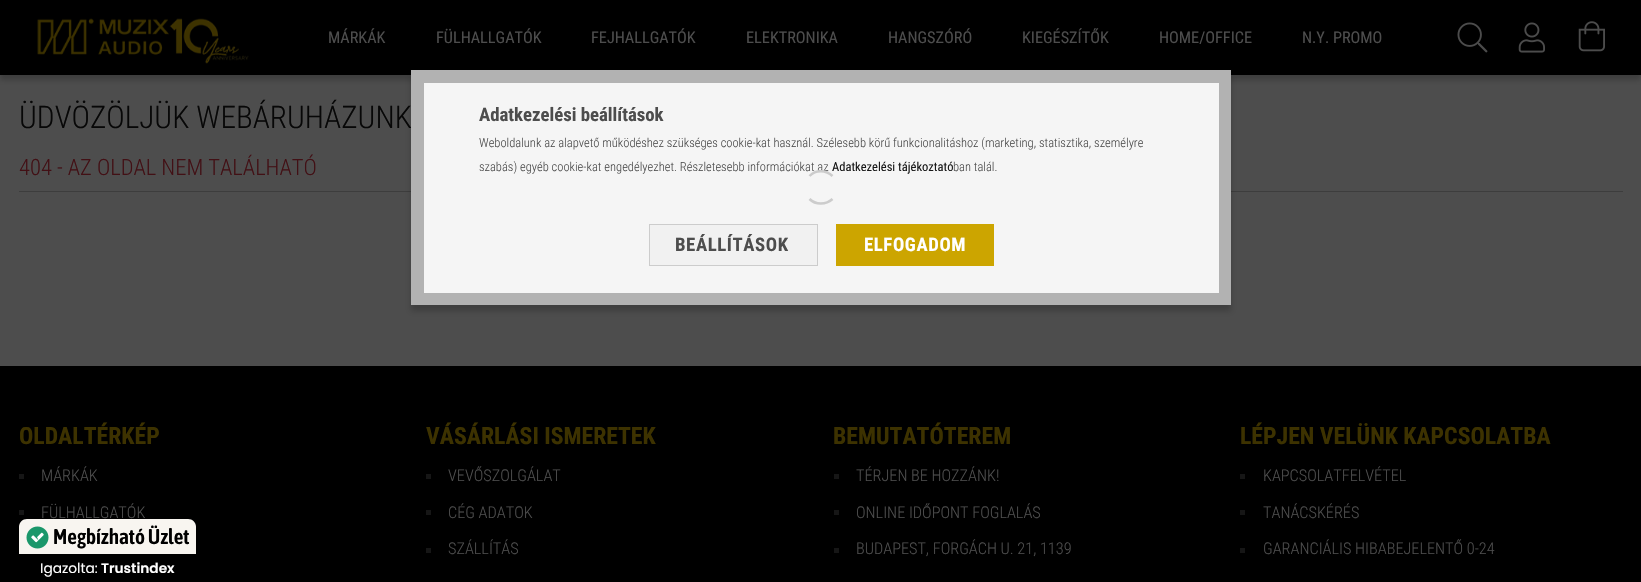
#include "include/core/SkBlurTypes.h"
#include "include/core/SkCanvas.h"
#include "include/core/SkData.h"
#include "include/core/SkFont.h"
#include "include/core/SkFontMgr.h"
#include "include/core/SkImage.h"
#include "include/core/SkMaskFilter.h"
#include "include/core/SkPaint.h"
#include "include/core/SkPathBuilder.h"
#include "include/core/SkTextBlob.h"
#include "include/effects/SkDashPathEffect.h"
#include "include/effects/SkGradientShader.h"
#include "include/utils/SkParsePath.h"

extern sk_sp<SkFontMgr> fontMgr;

void draw(SkCanvas* canvas) {
    SkPaint p;
    p.setAntiAlias(true);
    auto font = [&](const char* family, int weight, float size, bool italic = false) {
        SkFontStyle style(weight, SkFontStyle::kNormal_Width,
            italic ? SkFontStyle::kItalic_Slant : SkFontStyle::kUpright_Slant);
        SkFont result(fontMgr->matchFamilyStyle(family, style), size);
        result.setSubpixel(true);
        return result;
    };
    auto drawTracked = [&](const char* s, float x, float y, const SkFont& font, const SkPaint& ink, float letter, float word) {
        std::vector<SkGlyphID> glyphs(font.countText(s, strlen(s), SkTextEncoding::kUTF8));
        std::vector<float> xs(glyphs.size());
        font.textToGlyphs(s, strlen(s), SkTextEncoding::kUTF8, glyphs);
        font.getXPos(glyphs, xs, x);
        float extra = 0;
        for (size_t i = 0; i < glyphs.size(); i++) {
            xs[i] += extra;
            extra += letter + word * (glyphs[i] == font.unicharToGlyph(' '));
        }
        canvas->drawTextBlob(SkTextBlob::MakeFromPosHGlyphs(glyphs, xs, y, font), 0, 0, ink);
    };
    auto drawPhoto = [&](const char* path, float l, float t, float r, float b) {
        auto image = SkImages::DeferredFromEncodedData(SkData::MakeFromFileName(path));
        canvas->drawImageRect(image, SkRect::MakeLTRB(l, t, r, b), SkSamplingOptions());
    };
    canvas->clear(0xFF4D4D4D);
    p.setColor(0x33000000);
    p.setMaskFilter(SkMaskFilter::MakeBlur(kNormal_SkBlurStyle, 2.5f));
    canvas->drawRect(SkRect::MakeLTRB(0, 5, 1641, 80), p);
    p.setMaskFilter(nullptr);
    p.setColor(0xFF000000);
    canvas->drawRect(SkRect::MakeLTRB(0, 0, 1641, 75), p);
    drawPhoto("media/1.png", 37, 18, 249, 64);
    auto font1 = font("Roboto Condensed", 400, 16.25f);
    p.setColor(0xFF4D4D4D);
    {
        const struct { const char* s; float x, y; } items[] = {
            {"MÁRKÁK", 328, 43},
            {"FÜLHALLGATÓK", 436, 43},
            {"FEJHALLGATÓK", 591, 43},
            {"ELEKTRONIKA", 746, 43},
            {"HANGSZÓRÓ", 888, 43},
            {"KIEGÉSZÍTŐK", 1022, 43},
            {"HOME/OFFICE", 1159, 43},
            {"N.Y. PROMO", 1302, 43},
        };
        for (auto [s, x, y] : items) {
            canvas->drawString(s, x, y, font1, p);
        }
    }
    drawPhoto("media/2.png", 1457, 22, 1488, 53);
    drawPhoto("media/3.png", 1518, 22, 1545, 53);
    drawPhoto("media/4.png", 1578, 21, 1605, 52);
    auto font2 = font("Roboto Condensed", 300, 31.25f);
    p.setColor(0xFF070707);
    canvas->drawString("ÜDVÖZÖLJÜK WEBÁRUHÁZUNK", 19, 128, font2, p);
    p.setColor(0xFF3D3D3D);
    canvas->drawRect(SkRect::MakeLTRB(19, 191, 1623, 192), p);
    auto font3 = font("Roboto Condensed", 300, 22.5f);
    p.setColor(0xFF421015);
    canvas->drawString("404 - AZ OLDAL NEM TALÁLHATÓ", 19, 175, font3, p);
    p.setColor(0xFF000000);
    canvas->drawRect(SkRect::MakeLTRB(0, 366, 1641, 582), p);
    auto font4 = font("Roboto Condensed", 700, 23.75f);
    p.setColor(0xFF3D3200);
    canvas->drawString("OLDALTÉRKÉP", 19, 444, font4, p);
    p.setColor(0xFF161616);
    canvas->drawRect(SkRect::MakeLTRB(19, 474, 24, 479), p);
    auto font5 = font("Roboto Condensed", 300, 16.25f);
    p.setColor(0xFF4D4D4D);
    canvas->drawString("MÁRKÁK", 41, 481, font5, p);
    p.setColor(0xFF161616);
    canvas->drawRect(SkRect::MakeLTRB(19, 510, 24, 515), p);
    p.setColor(0xFF4D4D4D);
    canvas->drawString("FÜLHALLGATÓK", 41, 518, font5, p);
    p.setColor(0xFF3D3200);
    canvas->drawString("VÁSÁRLÁSI ISMERETEK", 426, 444, font4, p);
    p.setColor(0xFF161616);
    canvas->drawRect(SkRect::MakeLTRB(426, 474, 431, 479), p);
    p.setColor(0xFF4D4D4D);
    canvas->drawString("VEVŐSZOLGÁLAT", 448, 481, font5, p);
    p.setColor(0xFF161616);
    canvas->drawRect(SkRect::MakeLTRB(426, 510, 431, 515), p);
    p.setColor(0xFF4D4D4D);
    canvas->drawString("CÉG ADATOK", 448, 518, font5, p);
    p.setColor(0xFF161616);
    canvas->drawRect(SkRect::MakeLTRB(426, 548, 431, 553), p);
    p.setColor(0xFF4D4D4D);
    canvas->drawString("SZÁLLÍTÁS", 448, 554, font5, p);
    p.setColor(0xFF3D3200);
    canvas->drawString("BEMUTATÓTEREM", 833, 444, font4, p);
    p.setColor(0xFF161616);
    canvas->drawRect(SkRect::MakeLTRB(834, 474, 839, 479), p);
    p.setColor(0xFF4D4D4D);
    canvas->drawString("TÉRJEN BE HOZZÁNK!", 856, 481, font5, p);
    p.setColor(0xFF161616);
    canvas->drawRect(SkRect::MakeLTRB(834, 510, 839, 515), p);
    p.setColor(0xFF4D4D4D);
    canvas->drawString("ONLINE IDŐPONT FOGLALÁS", 856, 518, font5, p);
    p.setColor(0xFF161616);
    canvas->drawRect(SkRect::MakeLTRB(834, 548, 839, 553), p);
    p.setColor(0xFF4D4D4D);
    canvas->drawString("BUDAPEST, FORGÁCH U. 21, 1139", 856, 554, font5, p);
    p.setColor(0xFF3D3200);
    canvas->drawString("LÉPJEN VELÜNK KAPCSOLATBA", 1240, 444, font4, p);
    p.setColor(0xFF161616);
    canvas->drawRect(SkRect::MakeLTRB(1240, 474, 1245, 479), p);
    p.setColor(0xFF4D4D4D);
    canvas->drawString("KAPCSOLATFELVÉTEL", 1263, 481, font5, p);
    p.setColor(0xFF161616);
    canvas->drawRect(SkRect::MakeLTRB(1240, 510, 1245, 515), p);
    p.setColor(0xFF4D4D4D);
    canvas->drawString("TANÁCSKÉRÉS", 1263, 518, font5, p);
    p.setColor(0xFF161616);
    canvas->drawRect(SkRect::MakeLTRB(1240, 548, 1245, 553), p);
    p.setColor(0xFF4D4D4D);
    canvas->drawString("GARANCIÁLIS HIBABEJELENTŐ 0-24", 1263, 554, font5, p);
    p.setColor(0x33000000);
    p.setMaskFilter(SkMaskFilter::MakeBlur(kNormal_SkBlurStyle, 3));
    canvas->drawRect(SkRect::MakeLTRB(411, 76, 1231, 311), p);
    p.setMaskFilter(nullptr);
    p.setStyle(SkPaint::kStroke_Style);
    p.setStrokeWidth(13);
    p.setColor(0xFFB2B2B2);
    canvas->drawRect(SkRect::MakeLTRB(417.5f, 76.5f, 1224.5f, 298.5f), p);
    p.setStyle(SkPaint::kFill_Style);
    p.setColor(0xFFF5F5F5);
    canvas->drawRect(SkRect::MakeLTRB(424, 83, 1219, 293), p);
    auto font6 = font("Roboto Condensed", 700, 18.75f);
    p.setColor(0xFF4D4D4D);
    canvas->drawString("Adatkezelési beállítások", 479, 121, font6, p);
    auto font7 = font("Roboto Condensed", 300, 12.5f);
    canvas->drawString("Weboldalunk az alapvető működéshez szükséges cookie-kat használ. Szélesebb körű funkcionalitáshoz (marketing, statisztika, személyre", 479, 147, font7, p);
    canvas->drawString("szabás) egyéb cookie-kat engedélyezhet. Részletesebb információkat az", 479, 171, font7, p);
    auto font8 = font("Roboto Condensed", 400, 12.5f);
    p.setColor(0xFF181818);
    canvas->drawString("Adatkezelési tájékoztató", 832, 171, font8, p);
    p.setColor(0xFF4D4D4D);
    canvas->drawString("ban talál.", 953, 171, font7, p);
    p.setColor(0xFFF1F1F1);
    canvas->drawRect(SkRect::MakeLTRB(649.5f, 224.5f, 817.5f, 265.5f), p);
    p.setStyle(SkPaint::kStroke_Style);
    p.setStrokeWidth(1);
    p.setColor(0xFFCCCCCC);
    canvas->drawRect(SkRect::MakeLTRB(649.5f, 224.5f, 817.5f, 265.5f), p);
    p.setStyle(SkPaint::kFill_Style);
    p.setColor(0xFF4D4D4D);
    drawTracked("BEÁLLÍTÁSOK", 675, 251, font6, p, 0.6f, 0);
    p.setColor(0xFFCCA500);
    canvas->drawRect(SkRect::MakeLTRB(836, 224, 994, 266), p);
    p.setColor(0xFFFFFFFF);
    drawTracked("ELFOGADOM", 864, 251, font6, p, 0.6f, 0);
    p.setStyle(SkPaint::kStroke_Style);
    p.setStrokeWidth(2.5f);
    p.setColor(0xFFCCCCCC);
    canvas->drawPath(SkPathBuilder().moveTo(809.5f, 176).cubicTo(815.5f, 169.5f, 826, 169.5f, 832.5f, 176).moveTo(832.5f, 199).cubicTo(826, 205, 815.5f, 205, 809.5f, 199).detach(), p);
    p.setStyle(SkPaint::kFill_Style);
    p.setColor(0xFFF8F5F0);
    canvas->drawPath(SkPathBuilder().moveTo(27, 519).lineTo(188, 519).cubicTo(192.5f, 519, 196, 522.5f, 196, 527).lineTo(196, 554).lineTo(19, 554).lineTo(19, 527).cubicTo(19, 522.5f, 22.5f, 519, 27, 519).close().detach(), p);
    drawPhoto("media/5.png", 26, 526, 49, 549);
    auto font9 = font("Asap Condensed", 600, 21.25f);
    p.setColor(0xFF000000);
    canvas->drawString("Megbízható Üzlet", 53, 544, font9, p);
    auto font10 = font("Poppins", 400, 13.75f);
    p.setColor(0xFFFFFFFF);
    canvas->drawString("Igazolta:", 40, 573, font10, p);
    auto font11 = font("Poppins", 600, 13.75f);
    canvas->drawString("Trustindex", 101, 573, font11, p);
}
